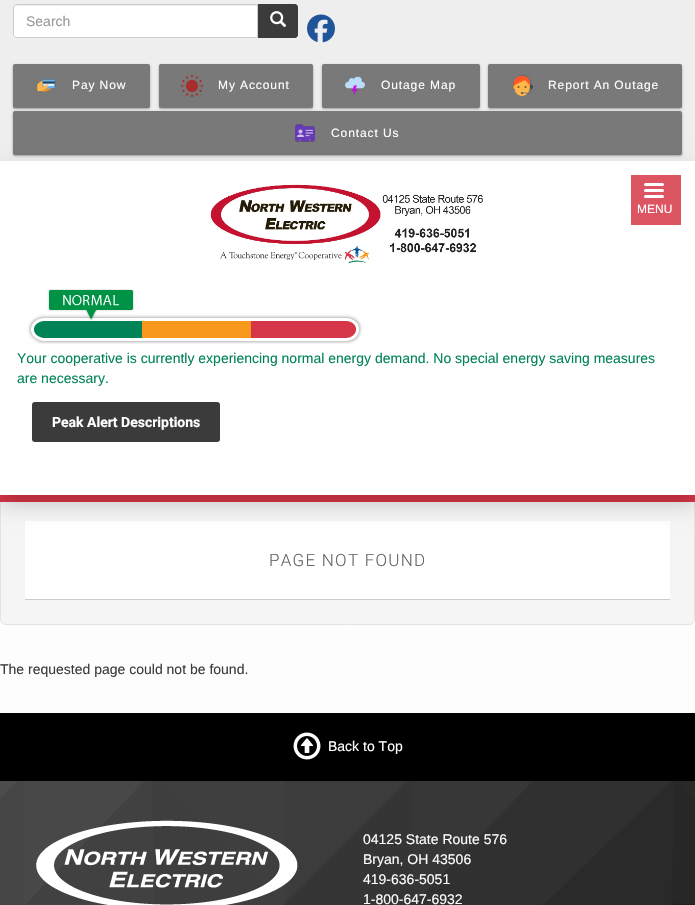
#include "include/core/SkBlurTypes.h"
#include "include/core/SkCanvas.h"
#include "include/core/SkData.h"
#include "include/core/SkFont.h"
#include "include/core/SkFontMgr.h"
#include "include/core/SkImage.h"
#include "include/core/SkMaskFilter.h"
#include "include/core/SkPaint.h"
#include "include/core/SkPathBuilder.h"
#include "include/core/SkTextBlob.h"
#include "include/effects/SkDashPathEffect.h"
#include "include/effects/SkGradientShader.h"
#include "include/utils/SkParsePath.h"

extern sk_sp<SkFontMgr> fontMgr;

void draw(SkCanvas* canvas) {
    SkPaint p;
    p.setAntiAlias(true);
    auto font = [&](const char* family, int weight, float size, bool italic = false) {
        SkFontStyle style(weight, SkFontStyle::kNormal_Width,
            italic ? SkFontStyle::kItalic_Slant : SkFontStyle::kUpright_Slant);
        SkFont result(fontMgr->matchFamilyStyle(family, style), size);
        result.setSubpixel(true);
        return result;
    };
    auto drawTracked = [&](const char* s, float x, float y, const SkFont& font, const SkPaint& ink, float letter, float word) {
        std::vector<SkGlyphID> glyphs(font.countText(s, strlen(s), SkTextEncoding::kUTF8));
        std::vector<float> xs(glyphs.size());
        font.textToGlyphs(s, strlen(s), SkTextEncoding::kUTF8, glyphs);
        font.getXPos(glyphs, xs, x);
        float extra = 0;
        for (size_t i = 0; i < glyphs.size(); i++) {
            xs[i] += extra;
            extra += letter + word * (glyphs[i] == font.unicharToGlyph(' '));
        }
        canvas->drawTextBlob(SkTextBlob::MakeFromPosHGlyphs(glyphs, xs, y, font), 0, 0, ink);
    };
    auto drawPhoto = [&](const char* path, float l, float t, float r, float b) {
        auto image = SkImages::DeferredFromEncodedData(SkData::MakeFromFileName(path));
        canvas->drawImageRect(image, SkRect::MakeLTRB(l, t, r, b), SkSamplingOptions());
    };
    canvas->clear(0xFFFDFDFD);
    p.setColor(0xFFEEEEEE);
    canvas->drawRect(SkRect::MakeLTRB(0, 0, 695, 161), p);
    p.setColor(0xFFFFFFFF);
    canvas->drawPath(SkPathBuilder().moveTo(17, 4).lineTo(258, 4).lineTo(258, 38).lineTo(17, 38).cubicTo(15, 38, 13, 36, 13, 34).lineTo(13, 8).cubicTo(13, 6, 15, 4, 17, 4).close().detach(), p);
    p.setColor(0xFFECECEC);
    canvas->drawPath(SkPathBuilder().moveTo(17, 6).lineTo(257, 6).lineTo(257, 5).lineTo(17, 5).cubicTo(15, 5, 14, 7, 14, 9).cubicTo(14, 7, 15, 6, 17, 6).close().detach(), p);
    p.setStyle(SkPaint::kStroke_Style);
    p.setStrokeWidth(1);
    p.setColor(0xFFCCCCCC);
    canvas->drawPath(SkPathBuilder().moveTo(17, 4.5f).lineTo(257.5f, 4.5f).lineTo(257.5f, 37.5f).lineTo(17, 37.5f).cubicTo(15, 37.5f, 13.5f, 36, 13.5f, 34).lineTo(13.5f, 8).cubicTo(13.5f, 6, 15, 4.5f, 17, 4.5f).close().detach(), p);
    auto font1 = font("Liberation Sans", 400, 14);
    p.setStyle(SkPaint::kFill_Style);
    p.setColor(0xFF999999);
    canvas->drawString("Search", 26, 26, font1, p);
    p.setColor(0xFF3B3B3B);
    canvas->drawPath(SkPathBuilder().moveTo(258, 4).lineTo(295, 4).cubicTo(296.5f, 4, 298, 5.5f, 298, 7).lineTo(298, 35).cubicTo(298, 36.5f, 296.5f, 38, 295, 38).lineTo(258, 38).close().detach(), p);
    drawPhoto("media/1.png", 270, 11, 287, 28);
    drawPhoto("media/2.png", 307, 14, 335, 43);
    p.setColor(0x3D000000);
    p.setMaskFilter(SkMaskFilter::MakeBlur(kNormal_SkBlurStyle, 1));
    canvas->drawRoundRect(SkRect::MakeLTRB(13, 65, 150, 109), 2, 2, p);
    p.setMaskFilter(nullptr);
    p.setColor(0x1F000000);
    p.setMaskFilter(SkMaskFilter::MakeBlur(kNormal_SkBlurStyle, 1.5f));
    canvas->drawRoundRect(SkRect::MakeLTRB(13, 65, 150, 109), 2, 2, p);
    p.setMaskFilter(nullptr);
    p.setColor(0xFF797979);
    canvas->drawRoundRect(SkRect::MakeLTRB(13, 64, 150, 108), 2, 2, p);
    drawPhoto("media/3.png", 36, 79, 56, 92);
    auto font2 = font("Liberation Sans", 400, 12);
    p.setColor(0xFFFFFFFF);
    drawTracked("Pay Now", 72, 89, font2, p, 0.9f, 0);
    p.setColor(0x3D000000);
    p.setMaskFilter(SkMaskFilter::MakeBlur(kNormal_SkBlurStyle, 1));
    canvas->drawRoundRect(SkRect::MakeLTRB(159, 65, 313, 109), 2, 2, p);
    p.setMaskFilter(nullptr);
    p.setColor(0x1F000000);
    p.setMaskFilter(SkMaskFilter::MakeBlur(kNormal_SkBlurStyle, 1.5f));
    canvas->drawRoundRect(SkRect::MakeLTRB(159, 65, 313, 109), 2, 2, p);
    p.setMaskFilter(nullptr);
    p.setColor(0xFF797979);
    canvas->drawRoundRect(SkRect::MakeLTRB(159, 64, 313, 108), 2, 2, p);
    drawPhoto("media/4.png", 180, 74, 204, 98);
    p.setColor(0xFFFFFFFF);
    drawTracked("My Account", 218, 89, font2, p, 0.9f, 0);
    p.setColor(0x3D000000);
    p.setMaskFilter(SkMaskFilter::MakeBlur(kNormal_SkBlurStyle, 1));
    canvas->drawRoundRect(SkRect::MakeLTRB(322, 65, 480, 109), 2, 2, p);
    p.setMaskFilter(nullptr);
    p.setColor(0x1F000000);
    p.setMaskFilter(SkMaskFilter::MakeBlur(kNormal_SkBlurStyle, 1.5f));
    canvas->drawRoundRect(SkRect::MakeLTRB(322, 65, 480, 109), 2, 2, p);
    p.setMaskFilter(nullptr);
    p.setColor(0xFF797979);
    canvas->drawRoundRect(SkRect::MakeLTRB(322, 64, 480, 108), 2, 2, p);
    drawPhoto("media/5.png", 345, 76, 365, 96);
    p.setColor(0xFFFFFFFF);
    drawTracked("Outage Map", 381, 89, font2, p, 0.9f, 0);
    p.setColor(0x3D000000);
    p.setMaskFilter(SkMaskFilter::MakeBlur(kNormal_SkBlurStyle, 1));
    canvas->drawRoundRect(SkRect::MakeLTRB(488, 65, 682, 109), 2, 2, p);
    p.setMaskFilter(nullptr);
    p.setColor(0x1F000000);
    p.setMaskFilter(SkMaskFilter::MakeBlur(kNormal_SkBlurStyle, 1.5f));
    canvas->drawRoundRect(SkRect::MakeLTRB(488, 65, 682, 109), 2, 2, p);
    p.setMaskFilter(nullptr);
    p.setColor(0xFF797979);
    canvas->drawRoundRect(SkRect::MakeLTRB(488, 64, 682, 108), 2, 2, p);
    drawPhoto("media/6.png", 512, 74, 533, 96);
    p.setColor(0xFFFFFFFF);
    drawTracked("Report An Outage", 548, 89, font2, p, 0.9f, 0);
    p.setColor(0x3D000000);
    p.setMaskFilter(SkMaskFilter::MakeBlur(kNormal_SkBlurStyle, 1));
    canvas->drawRoundRect(SkRect::MakeLTRB(13, 112, 682, 156), 2, 2, p);
    p.setMaskFilter(nullptr);
    p.setColor(0x1F000000);
    p.setMaskFilter(SkMaskFilter::MakeBlur(kNormal_SkBlurStyle, 1.5f));
    canvas->drawRoundRect(SkRect::MakeLTRB(13, 112, 682, 156), 2, 2, p);
    p.setMaskFilter(nullptr);
    p.setColor(0xFF797979);
    canvas->drawRoundRect(SkRect::MakeLTRB(13, 111, 682, 155), 2, 2, p);
    drawPhoto("media/7.png", 295, 124, 315, 142);
    p.setColor(0xFFFFFFFF);
    drawTracked("Contact Us", 331, 137, font2, p, 0.9f, 0);
    p.setColor(0xFFF5F5F5);
    canvas->drawRoundRect(SkRect::MakeLTRB(0.5f, 496.5f, 694.5f, 624.5f), 5.5f, 5.5f, p);
    p.setStyle(SkPaint::kStroke_Style);
    p.setColor(0xFFE3E3E3);
    canvas->drawRoundRect(SkRect::MakeLTRB(0.5f, 496.5f, 694.5f, 624.5f), 5.5f, 5.5f, p);
    p.setStyle(SkPaint::kFill_Style);
    p.setColor(0xFFD73647);
    canvas->drawRect(SkRect::MakeLTRB(0, 495, 695, 502), p);
    p.setColor(0xFFFFFFFF);
    canvas->drawRect(SkRect::MakeLTRB(25, 521, 670, 599), p);
    p.setColor(0x2E000000);
    p.setMaskFilter(SkMaskFilter::MakeBlur(kNormal_SkBlurStyle, 10));
    canvas->drawRect(SkRect::MakeLTRB(0, 171, 695, 505), p);
    p.setMaskFilter(nullptr);
    p.setColor(0xFFFFFFFF);
    canvas->drawRect(SkRect::MakeLTRB(0, 161, 695, 495), p);
    drawPhoto("media/8.png", 210, 184, 483, 264);
    p.setColor(0xFFDD5463);
    canvas->drawRect(SkRect::MakeLTRB(631, 175, 681, 225), p);
    p.setColor(0xFFFFFFFF);
    canvas->drawRoundRect(SkRect::MakeLTRB(644, 183, 664, 186), 1.5f, 1.5f, p);
    canvas->drawRoundRect(SkRect::MakeLTRB(644, 189, 664, 192), 1.5f, 1.5f, p);
    canvas->drawRoundRect(SkRect::MakeLTRB(644, 195, 664, 198), 1.5f, 1.5f, p);
    canvas->drawString("MENU", 637, 213, font2, p);
    drawPhoto("media/9.png", 28, 289, 362, 344);
    p.setColor(0xFF008357);
    canvas->drawString("Your cooperative is currently experiencing normal energy demand. No special energy saving measures", 17, 363, font1, p);
    canvas->drawString("are necessary.", 17, 383, font1, p);
    p.setColor(0xFF3B3B3B);
    canvas->drawRoundRect(SkRect::MakeLTRB(32, 402, 220, 442), 3, 3, p);
    auto font3 = font("Roboto", 700, 14);
    p.setColor(0xFFFFFFFF);
    canvas->drawString("Peak Alert Descriptions", 52, 427, font3, p);
    p.setColor(0xFFCCCCCC);
    canvas->drawRect(SkRect::MakeLTRB(25, 599, 670, 600), p);
    auto font4 = font("Roboto", 300, 17);
    p.setColor(0xFF666666);
    drawTracked("PAGE NOT FOUND", 269, 566, font4, p, 1.25f, 0);
    p.setColor(0xFF3B3B3B);
    canvas->drawString("The requested page could not be found.", 0, 674, font1, p);
    p.setColor(0xFF000000);
    canvas->drawRect(SkRect::MakeLTRB(0, 713, 695, 781), p);
    drawPhoto("media/10.png", 293, 732, 321, 760);
    p.setColor(0xFFFFFFFF);
    canvas->drawString("Back to Top", 328, 751, font1, p);
    p.setColor(0xFF282827);
    canvas->drawRect(SkRect::MakeLTRB(0, 781, 695, 905), p);
    drawPhoto("media/11.png", 0, 781, 695, 905);
    drawPhoto("media/12.png", 36, 820, 298, 905);
    p.setColor(0xFFFFFFFF);
    {
        const struct { const char* s; float x, y; } items[] = {
            {"04125 State Route 576", 363, 844},
            {"Bryan, OH 43506", 363, 864},
            {"419-636-5051", 363, 884},
            {"1-800-647-6932", 363, 904},
        };
        for (auto [s, x, y] : items) {
            canvas->drawString(s, x, y, font1, p);
        }
    }
}
